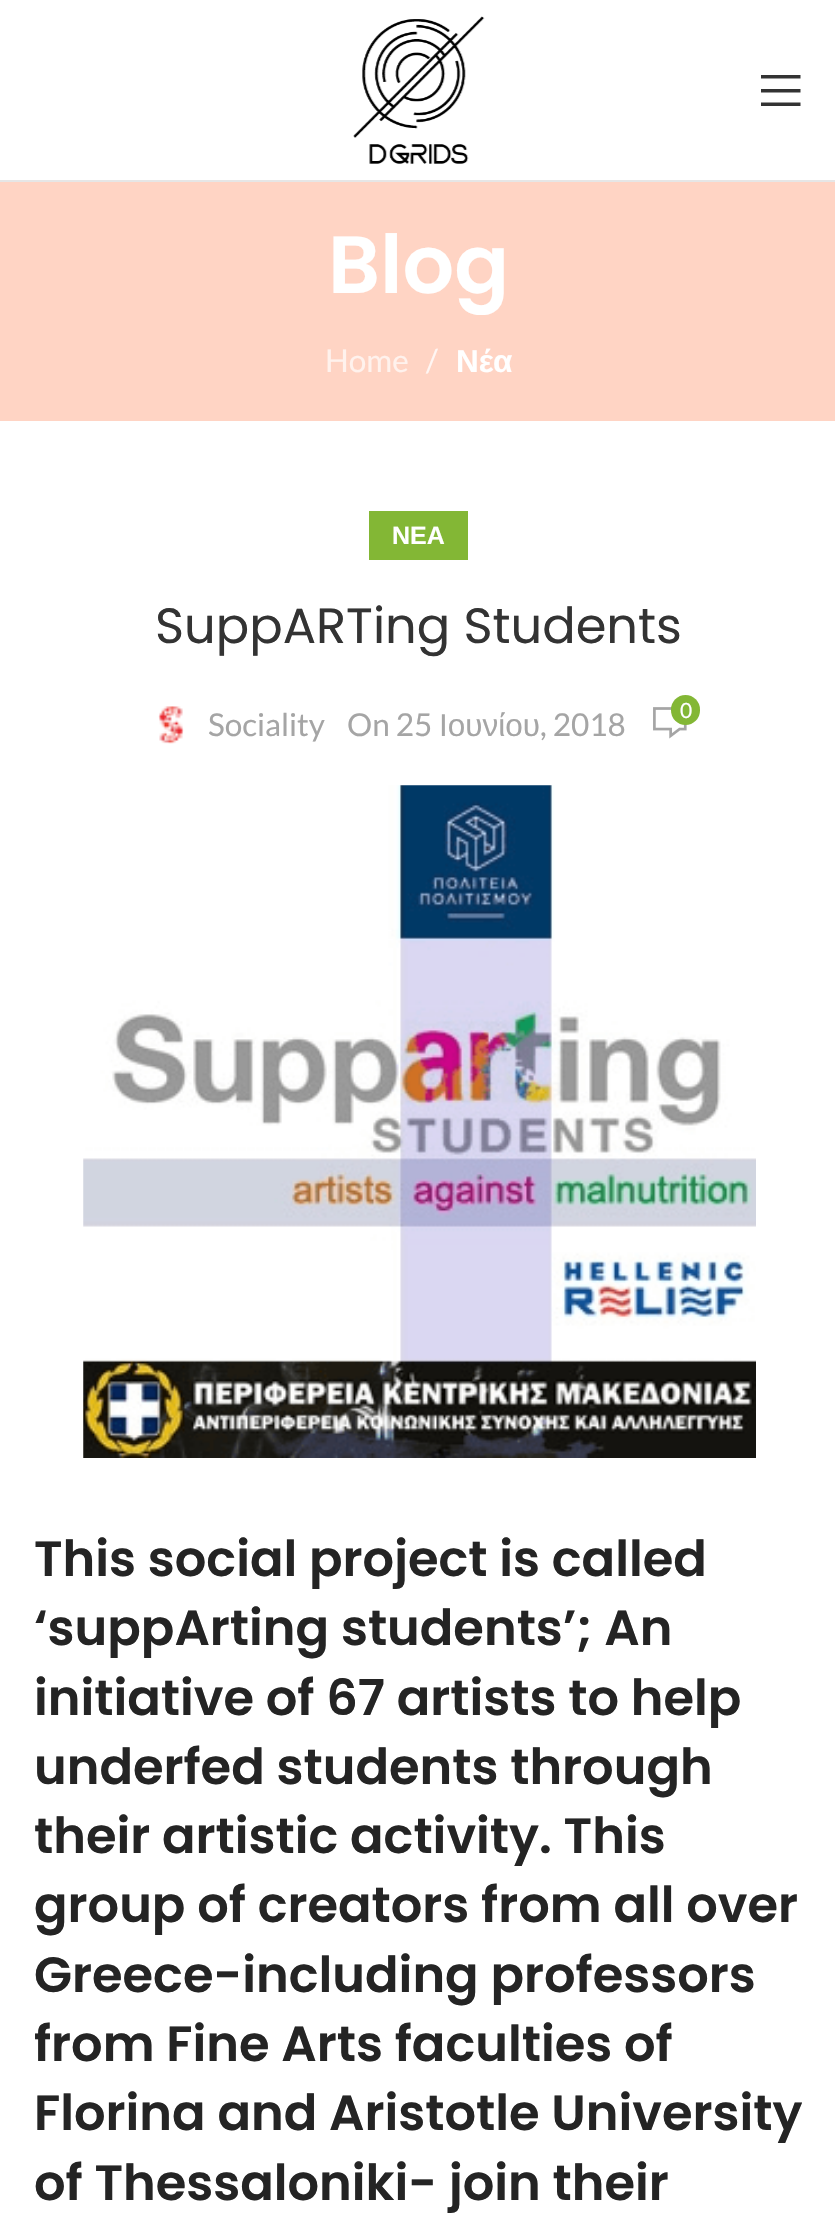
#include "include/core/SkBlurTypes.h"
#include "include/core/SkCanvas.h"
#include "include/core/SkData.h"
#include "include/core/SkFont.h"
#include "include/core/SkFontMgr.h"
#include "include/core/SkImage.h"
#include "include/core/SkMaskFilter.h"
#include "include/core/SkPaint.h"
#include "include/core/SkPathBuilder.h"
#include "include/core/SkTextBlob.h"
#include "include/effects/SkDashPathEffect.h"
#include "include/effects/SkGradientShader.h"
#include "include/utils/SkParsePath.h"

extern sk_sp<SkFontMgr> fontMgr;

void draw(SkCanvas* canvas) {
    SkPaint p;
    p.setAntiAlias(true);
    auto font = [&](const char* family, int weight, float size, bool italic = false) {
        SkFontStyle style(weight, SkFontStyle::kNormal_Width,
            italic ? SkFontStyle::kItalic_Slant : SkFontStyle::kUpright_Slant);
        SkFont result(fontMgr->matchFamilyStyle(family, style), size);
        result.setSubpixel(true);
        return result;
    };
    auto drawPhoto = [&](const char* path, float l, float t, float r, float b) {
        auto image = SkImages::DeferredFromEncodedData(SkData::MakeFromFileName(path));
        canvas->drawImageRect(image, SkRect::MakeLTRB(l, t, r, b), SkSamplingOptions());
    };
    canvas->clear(0xFFFFFFFF);
    p.setColor(0xFFE6E6E6);
    canvas->drawRect(SkRect::MakeLTRB(0, 180, 835, 182), p);
    drawPhoto("media/1.png", 353, 16, 485, 164);
    p.setColor(0xFF333333);
    canvas->drawPath(SkPathBuilder().moveTo(761, 78.5f).lineTo(800.5f, 78.5f).lineTo(800.5f, 75).lineTo(761, 75).close().moveTo(761, 92.5f).lineTo(800.5f, 92.5f).lineTo(800.5f, 89).lineTo(761, 89).close().moveTo(761, 106).lineTo(800.5f, 106).lineTo(800.5f, 102.5f).lineTo(761, 102.5f).close().detach(), p);
    p.setColor(0xFFFFD4C4);
    canvas->drawRect(SkRect::MakeLTRB(0, 182, 835, 421), p);
    auto font1 = font("Poppins", 600, 81);
    p.setColor(0xFFFFFFFF);
    canvas->drawString("Blog", 328, 293, font1, p);
    auto font2 = font("Lato", 400, 31.5f);
    p.setColor(0xFFFFF2ED);
    canvas->drawString("Home", 325, 372, font2, p);
    p.setColor(0xFFFFF6F3);
    canvas->drawString("/", 426, 372, font2, p);
    auto font3 = font("Liberation Sans", 700, 31.5f);
    p.setColor(0xFFFFFFFF);
    canvas->drawString("Νέα", 456, 372, font3, p);
    p.setColor(0xFF83B735);
    canvas->drawRect(SkRect::MakeLTRB(369, 511, 468, 560), p);
    auto font4 = font("Liberation Sans", 700, 25);
    p.setColor(0xFFFFFFFF);
    canvas->drawString("ΝΕΑ", 392, 544, font4, p);
    auto font5 = font("Poppins", 400, 49.5f);
    p.setColor(0xFF333333);
    canvas->drawString("SuppARTing Students", 155, 643, font5, p);
    drawPhoto("media/2.png", 158, 706, 184, 744);
    p.setColor(0xFFA5A5A5);
    canvas->drawString("Sociality", 208, 736, font2, p);
    canvas->drawString("On 25", 347, 736, font2, p);
    auto font6 = font("Liberation Sans", 400, 31.5f);
    canvas->drawString("Ιουνίου", 439, 736, font6, p);
    canvas->drawString(", 2018", 540, 736, font2, p);
    drawPhoto("media/3.png", 653, 707, 687, 739);
    p.setColor(0xFF83B735);
    canvas->drawRoundRect(SkRect::MakeLTRB(671, 695, 700, 725), 14.5f, 14.5f, p);
    auto font7 = font("Lato", 400, 21);
    p.setColor(0xFFFFFFFF);
    canvas->drawString("0", 680, 718, font7, p);
    drawPhoto("media/4.png", 83, 785, 756, 1458);
    auto font8 = font("Poppins", 600, 49.5f);
    p.setColor(0xFF242424);
    {
        const struct { const char* s; float x, y; } items[] = {
            {"This social project is called", 34, 1576},
            {"‘suppArting students’; An", 34, 1645},
            {"initiative of 67 artists to help", 34, 1715},
            {"underfed students through", 34, 1784},
            {"their artistic activity. This", 34, 1853},
            {"group of creators from all over", 34, 1922},
            {"Greece-including professors", 34, 1992},
            {"from Fine Arts faculties of", 34, 2061},
            {"Florina and Aristotle University", 34, 2130},
            {"of Thessaloniki- join their", 34, 2200},
        };
        for (auto [s, x, y] : items) {
            canvas->drawString(s, x, y, font8, p);
        }
    }
}
